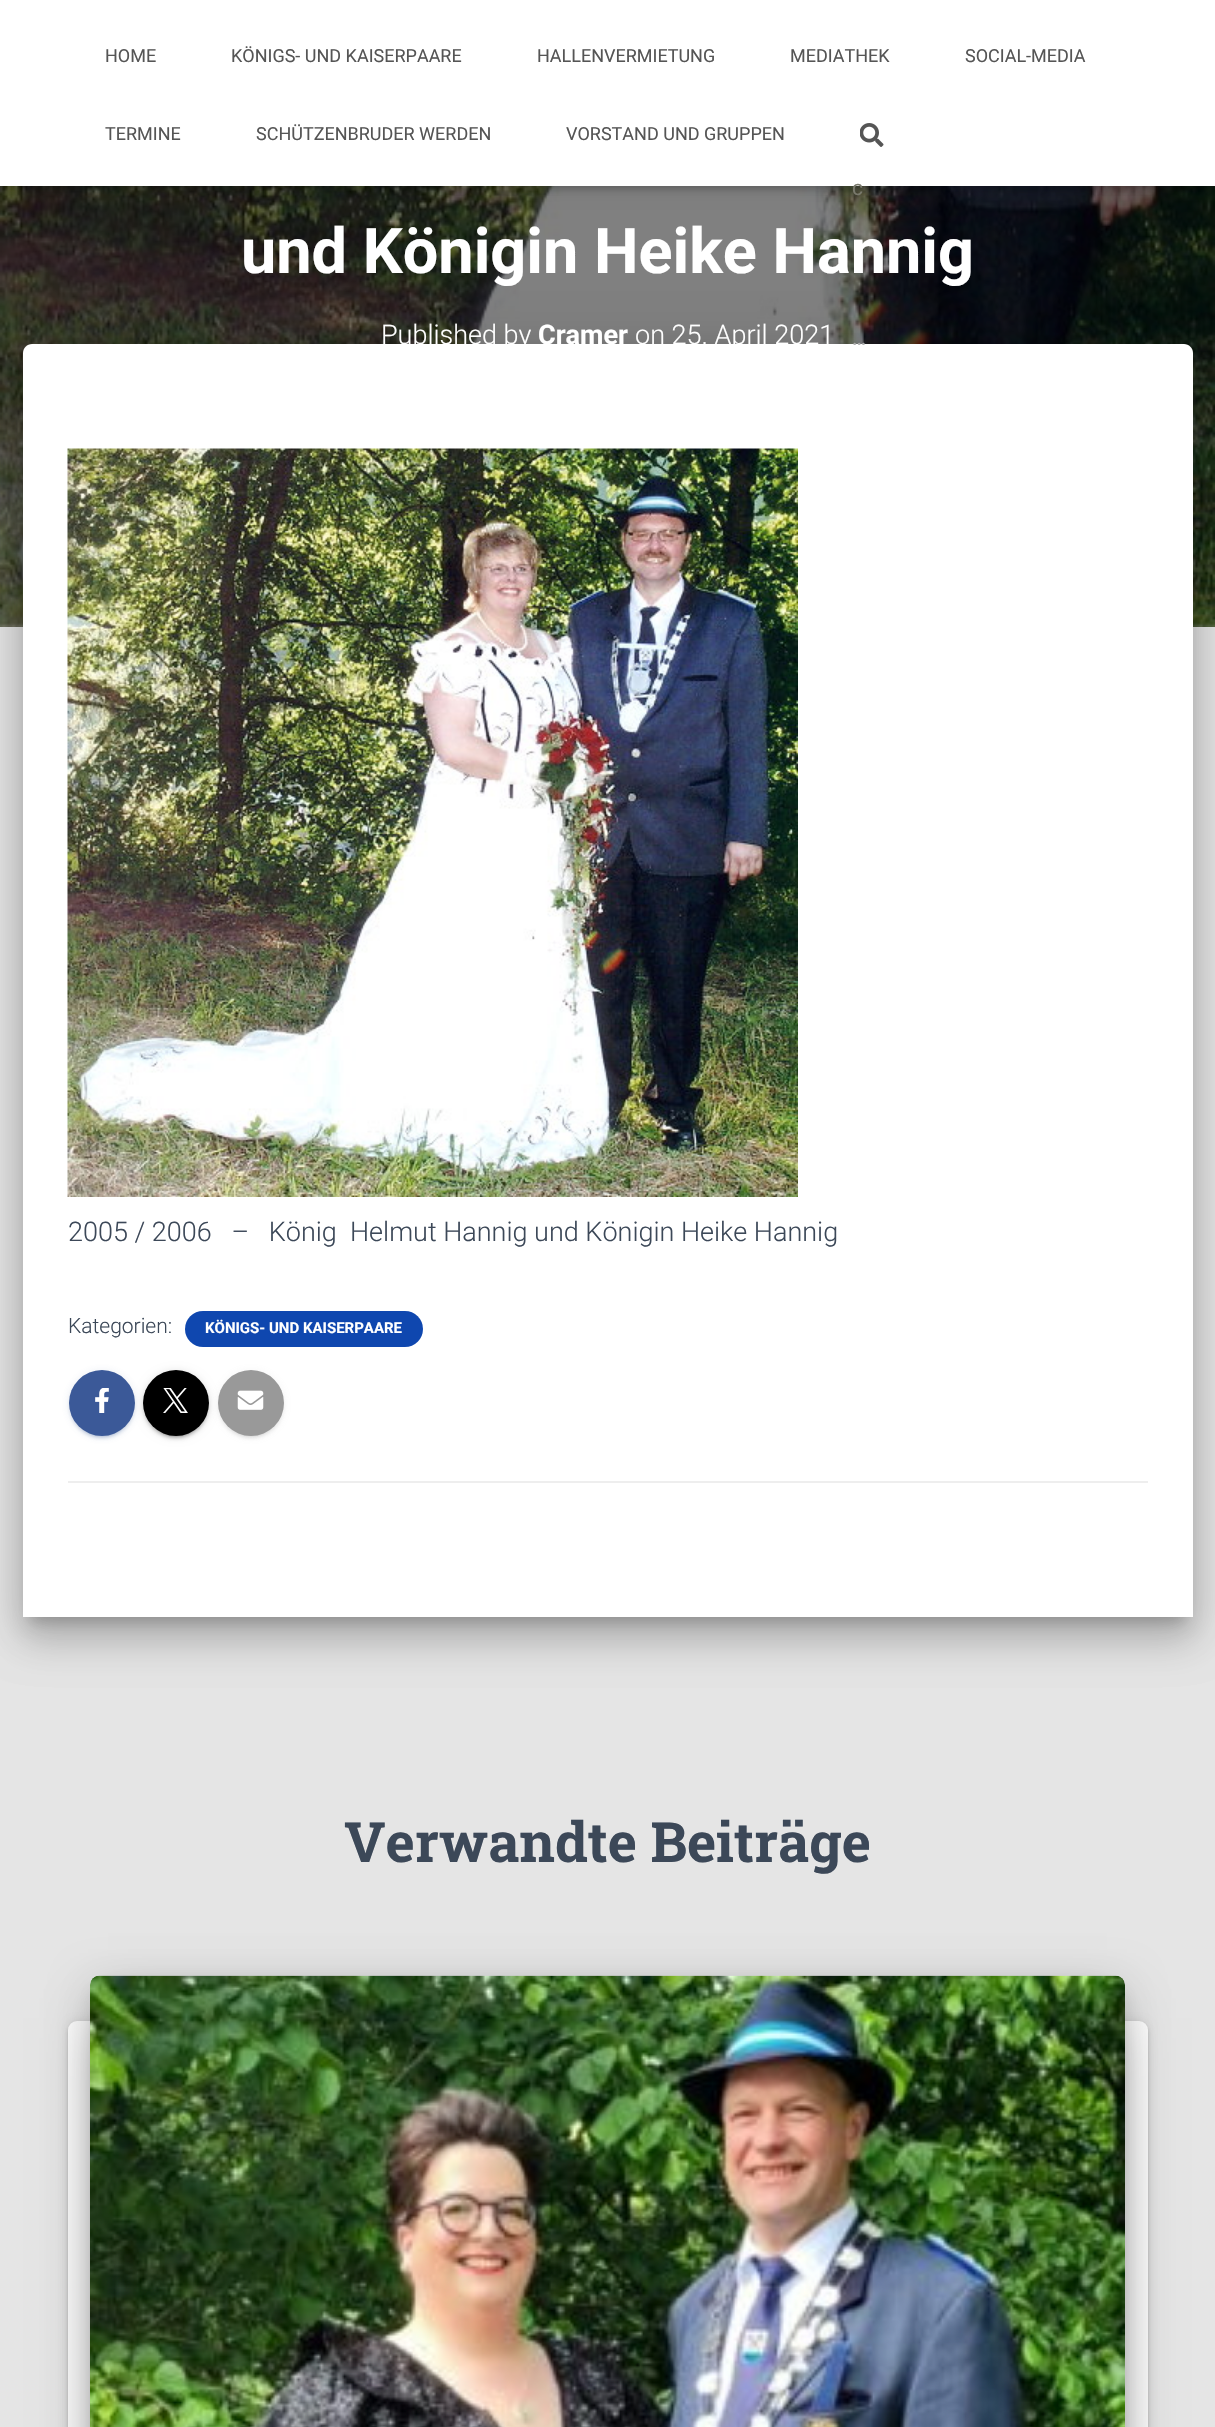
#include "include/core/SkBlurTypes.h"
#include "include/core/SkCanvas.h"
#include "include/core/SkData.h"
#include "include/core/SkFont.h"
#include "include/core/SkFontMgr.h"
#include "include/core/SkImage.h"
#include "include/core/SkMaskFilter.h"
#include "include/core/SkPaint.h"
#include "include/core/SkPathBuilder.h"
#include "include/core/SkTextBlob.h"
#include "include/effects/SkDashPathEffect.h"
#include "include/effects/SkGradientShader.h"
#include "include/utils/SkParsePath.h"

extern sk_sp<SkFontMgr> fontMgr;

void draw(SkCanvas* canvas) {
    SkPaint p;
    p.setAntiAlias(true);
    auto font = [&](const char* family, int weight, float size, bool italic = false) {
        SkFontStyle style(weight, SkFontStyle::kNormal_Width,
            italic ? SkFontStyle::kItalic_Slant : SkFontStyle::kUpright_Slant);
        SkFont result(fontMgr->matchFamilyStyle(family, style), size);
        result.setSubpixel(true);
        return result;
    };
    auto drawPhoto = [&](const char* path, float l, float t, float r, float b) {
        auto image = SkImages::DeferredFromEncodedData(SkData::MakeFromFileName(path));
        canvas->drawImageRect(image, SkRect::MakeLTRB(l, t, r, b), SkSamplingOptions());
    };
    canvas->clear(0xFFE5E5E5);
    drawPhoto("media/2.png", 0, 186, 1215, 627);
    p.setColor(0x1A000000);
    p.setMaskFilter(SkMaskFilter::MakeBlur(kNormal_SkBlurStyle, 4));
    canvas->drawRect(SkRect::MakeLTRB(3, 9, 1212, 189), p);
    p.setMaskFilter(nullptr);
    p.setColor(0x1F000000);
    p.setMaskFilter(SkMaskFilter::MakeBlur(kNormal_SkBlurStyle, 7.5f));
    canvas->drawRect(SkRect::MakeLTRB(0, 2, 1215, 188), p);
    p.setMaskFilter(nullptr);
    p.setColor(0x6B000000);
    p.setMaskFilter(SkMaskFilter::MakeBlur(kNormal_SkBlurStyle, 7.5f));
    canvas->drawRect(SkRect::MakeLTRB(9, 11, 1206, 179), p);
    p.setMaskFilter(nullptr);
    p.setColor(0xFFFFFFFF);
    canvas->drawRect(SkRect::MakeLTRB(0, 0, 1215, 186), p);
    auto font1 = font("Roboto", 400, 18);
    p.setColor(0xFF555555);
    {
        const struct { const char* s; float x, y; } items[] = {
            {"HOME", 105, 62},
            {"KÖNIGS- UND KAISERPAARE", 231, 62},
            {"HALLENVERMIETUNG", 537, 62},
            {"MEDIATHEK", 790, 62},
            {"SOCIAL-MEDIA", 965, 62},
            {"TERMINE", 105, 140},
            {"SCHÜTZENBRUDER WERDEN", 256, 140},
            {"VORSTAND UND GRUPPEN", 566, 140},
        };
        for (auto [s, x, y] : items) {
            canvas->drawString(s, x, y, font1, p);
        }
    }
    drawPhoto("media/1.png", 860, 123, 884, 147);
    auto font2 = font("Roboto", 400, 21);
    p.setColor(0xFF79796C);
    canvas->drawString("c", 852, 195, font2, p);
    p.setColor(0x33000000);
    p.setMaskFilter(SkMaskFilter::MakeBlur(kNormal_SkBlurStyle, 7.5f));
    canvas->drawRoundRect(SkRect::MakeLTRB(30, 363, 1185, 1622), 1.5f, 1.5f, p);
    p.setMaskFilter(nullptr);
    p.setColor(0x1F000000);
    p.setMaskFilter(SkMaskFilter::MakeBlur(kNormal_SkBlurStyle, 22.5f));
    canvas->drawRoundRect(SkRect::MakeLTRB(15, 345, 1200, 1634), 17, 17, p);
    p.setMaskFilter(nullptr);
    p.setColor(0x24000000);
    p.setMaskFilter(SkMaskFilter::MakeBlur(kNormal_SkBlurStyle, 18));
    canvas->drawRoundRect(SkRect::MakeLTRB(20, 365, 1196, 1644), 12, 12, p);
    p.setMaskFilter(nullptr);
    p.setColor(0xFFFFFFFF);
    canvas->drawPath(SkPathBuilder().moveTo(32, 344).lineTo(1184, 344).cubicTo(1189, 344, 1193, 348, 1193, 353).lineTo(1193, 1617).lineTo(23, 1617).lineTo(23, 353).cubicTo(23, 348, 27, 344, 32, 344).close().detach(), p);
    p.setColor(0xFFADAEAE);
    canvas->drawString("…", 852, 345, font2, p);
    auto font3 = font("Roboto", 700, 63);
    p.setColor(0xFFFFFFFF);
    canvas->drawString("und Königin Heike Hannig", 241, 273, font3, p);
    auto font4 = font("Roboto", 300, 27);
    canvas->drawString("Published by", 381, 344, font4, p);
    auto font5 = font("Roboto", 700, 27);
    canvas->drawString("Cramer", 538, 344, font5, p);
    canvas->drawString("on 25. April 2021", 635, 344, font4, p);
    drawPhoto("media/3.png", 67, 448, 798, 1197);
    p.setColor(0xFF3C4858);
    canvas->drawString("2005 / 2006   –   König  Helmut Hannig und Königin Heike Hannig", 68, 1241, font4, p);
    auto font6 = font("Roboto", 300, 21);
    canvas->drawString("Kategorien:", 68, 1333, font6, p);
    p.setColor(0xFF0F47AF);
    canvas->drawRoundRect(SkRect::MakeLTRB(185, 1311, 423, 1347), 18, 18, p);
    auto font7 = font("Roboto", 700, 15);
    p.setColor(0xFFFFFFFF);
    canvas->drawString("KÖNIGS- UND KAISERPAARE", 205, 1333, font7, p);
    p.setColor(0x1F3B5998);
    p.setMaskFilter(SkMaskFilter::MakeBlur(kNormal_SkBlurStyle, 4));
    canvas->drawRoundRect(SkRect::MakeLTRB(69, 1371, 135, 1437), 33, 33, p);
    p.setMaskFilter(nullptr);
    p.setColor(0x333B5998);
    p.setMaskFilter(SkMaskFilter::MakeBlur(kNormal_SkBlurStyle, 1));
    canvas->drawRoundRect(SkRect::MakeLTRB(72, 1377, 132, 1437), 30, 30, p);
    p.setMaskFilter(nullptr);
    p.setColor(0x243B5998);
    p.setMaskFilter(SkMaskFilter::MakeBlur(kNormal_SkBlurStyle, 1.5f));
    canvas->drawRoundRect(SkRect::MakeLTRB(69, 1373, 135, 1439), 33, 33, p);
    p.setMaskFilter(nullptr);
    p.setColor(0xFF3B5998);
    canvas->drawCircle(102, 1403, 33, p);
    drawPhoto("media/4.png", 95, 1388, 109, 1413);
    p.setColor(0x1F000000);
    p.setMaskFilter(SkMaskFilter::MakeBlur(kNormal_SkBlurStyle, 4));
    canvas->drawRoundRect(SkRect::MakeLTRB(143, 1371, 209, 1437), 33, 33, p);
    p.setMaskFilter(nullptr);
    p.setColor(0x33000000);
    p.setMaskFilter(SkMaskFilter::MakeBlur(kNormal_SkBlurStyle, 1));
    canvas->drawRoundRect(SkRect::MakeLTRB(146, 1377, 206, 1437), 30, 30, p);
    p.setMaskFilter(nullptr);
    p.setColor(0x24000000);
    p.setMaskFilter(SkMaskFilter::MakeBlur(kNormal_SkBlurStyle, 1.5f));
    canvas->drawRoundRect(SkRect::MakeLTRB(143, 1373, 209, 1439), 33, 33, p);
    p.setMaskFilter(nullptr);
    p.setColor(0xFF000000);
    canvas->drawCircle(176, 1403, 33, p);
    drawPhoto("media/5.png", 163, 1388, 188, 1413);
    p.setColor(0x1F999999);
    p.setMaskFilter(SkMaskFilter::MakeBlur(kNormal_SkBlurStyle, 4));
    canvas->drawRoundRect(SkRect::MakeLTRB(218, 1371, 284, 1437), 33, 33, p);
    p.setMaskFilter(nullptr);
    p.setColor(0x33999999);
    p.setMaskFilter(SkMaskFilter::MakeBlur(kNormal_SkBlurStyle, 1));
    canvas->drawRoundRect(SkRect::MakeLTRB(221, 1377, 281, 1437), 30, 30, p);
    p.setMaskFilter(nullptr);
    p.setColor(0x24999999);
    p.setMaskFilter(SkMaskFilter::MakeBlur(kNormal_SkBlurStyle, 1.5f));
    canvas->drawRoundRect(SkRect::MakeLTRB(218, 1373, 284, 1439), 33, 33, p);
    p.setMaskFilter(nullptr);
    p.setColor(0xFF999999);
    canvas->drawCircle(251, 1403, 33, p);
    drawPhoto("media/6.png", 237, 1390, 264, 1410);
    p.setColor(0xFFEEEEEE);
    canvas->drawRect(SkRect::MakeLTRB(68, 1481, 1148, 1483), p);
    auto font8 = font("Roboto Slab", 700, 55.5f);
    p.setColor(0xFF3C4858);
    canvas->drawString("Verwandte Beiträge", 344, 1862, font8, p);
    p.setColor(0x1F000000);
    p.setMaskFilter(SkMaskFilter::MakeBlur(kNormal_SkBlurStyle, 4));
    canvas->drawRoundRect(SkRect::MakeLTRB(68, 2022, 1148, 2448), 9, 9, p);
    p.setMaskFilter(nullptr);
    p.setColor(0x24000000);
    p.setMaskFilter(SkMaskFilter::MakeBlur(kNormal_SkBlurStyle, 1.5f));
    canvas->drawRoundRect(SkRect::MakeLTRB(68, 2024, 1148, 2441), 9, 9, p);
    p.setMaskFilter(nullptr);
    p.setColor(0xFFFFFFFF);
    canvas->drawRoundRect(SkRect::MakeLTRB(68, 2021, 1148, 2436), 9, 9, p);
    p.setColor(0x33000000);
    p.setMaskFilter(SkMaskFilter::MakeBlur(kNormal_SkBlurStyle, 7.5f));
    canvas->drawRoundRect(SkRect::MakeLTRB(98, 1995, 1118, 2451), 1.5f, 1.5f, p);
    p.setMaskFilter(nullptr);
    p.setColor(0x1F000000);
    p.setMaskFilter(SkMaskFilter::MakeBlur(kNormal_SkBlurStyle, 19));
    canvas->drawRoundRect(SkRect::MakeLTRB(90, 1982, 1125, 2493), 9, 9, p);
    p.setMaskFilter(nullptr);
    p.setColor(0x8F000000);
    p.setMaskFilter(SkMaskFilter::MakeBlur(kNormal_SkBlurStyle, 28.5f));
    canvas->drawRect(SkRect::MakeLTRB(108, 2018, 1107, 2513), p);
    p.setMaskFilter(nullptr);
    drawPhoto("media/7.png", 90, 1975, 1125, 2427);
}
